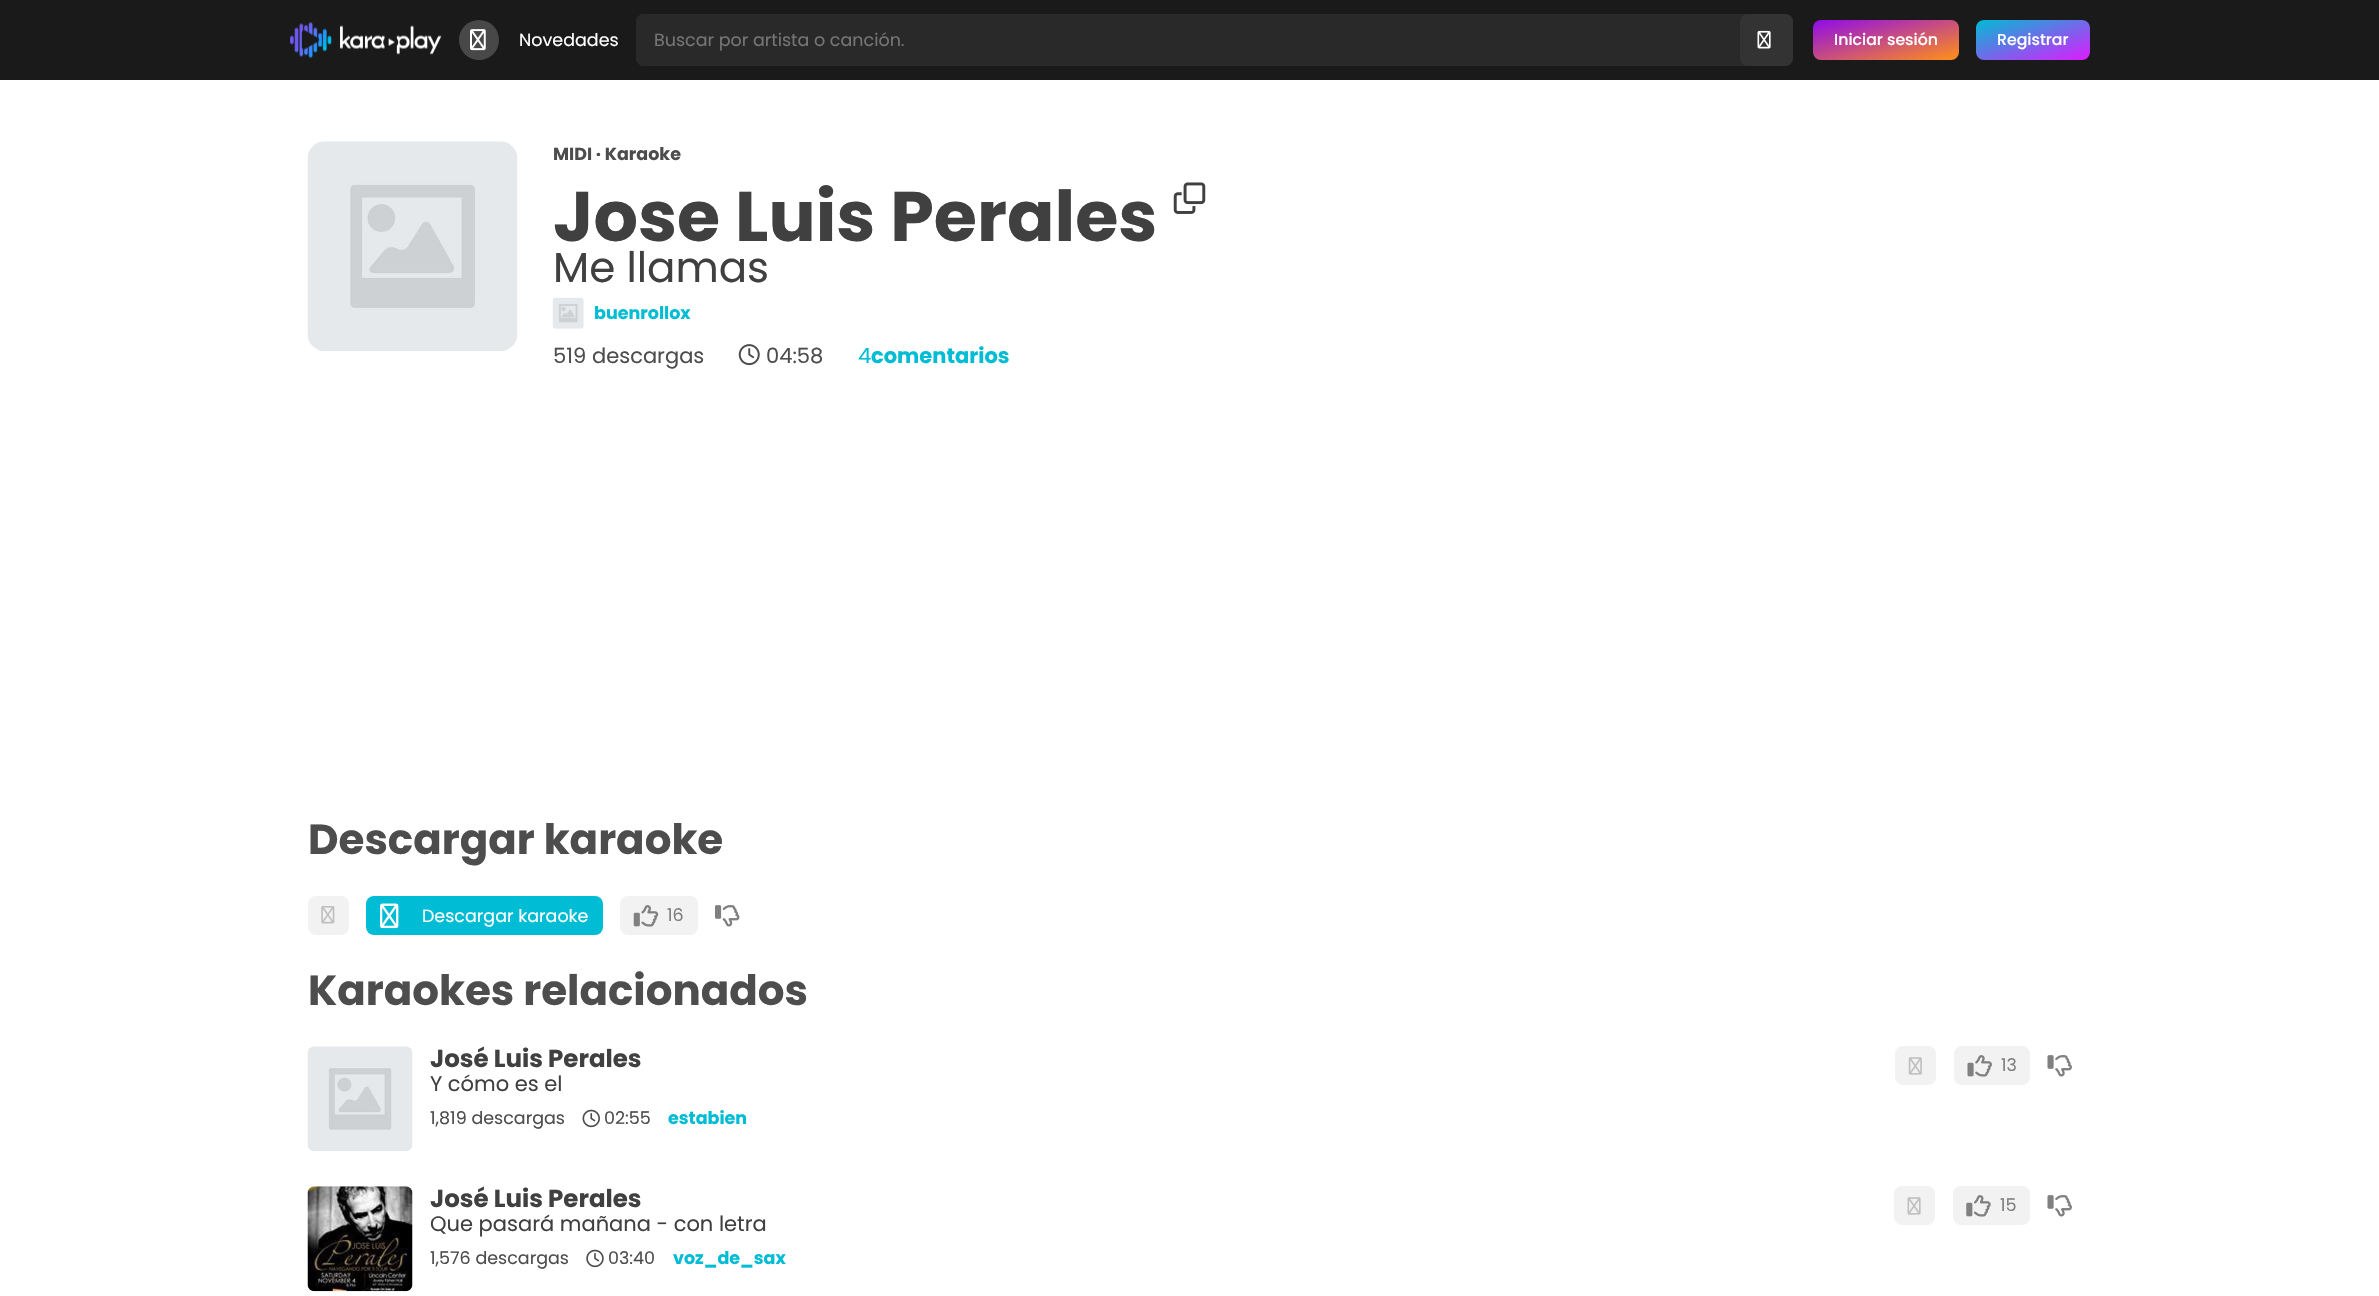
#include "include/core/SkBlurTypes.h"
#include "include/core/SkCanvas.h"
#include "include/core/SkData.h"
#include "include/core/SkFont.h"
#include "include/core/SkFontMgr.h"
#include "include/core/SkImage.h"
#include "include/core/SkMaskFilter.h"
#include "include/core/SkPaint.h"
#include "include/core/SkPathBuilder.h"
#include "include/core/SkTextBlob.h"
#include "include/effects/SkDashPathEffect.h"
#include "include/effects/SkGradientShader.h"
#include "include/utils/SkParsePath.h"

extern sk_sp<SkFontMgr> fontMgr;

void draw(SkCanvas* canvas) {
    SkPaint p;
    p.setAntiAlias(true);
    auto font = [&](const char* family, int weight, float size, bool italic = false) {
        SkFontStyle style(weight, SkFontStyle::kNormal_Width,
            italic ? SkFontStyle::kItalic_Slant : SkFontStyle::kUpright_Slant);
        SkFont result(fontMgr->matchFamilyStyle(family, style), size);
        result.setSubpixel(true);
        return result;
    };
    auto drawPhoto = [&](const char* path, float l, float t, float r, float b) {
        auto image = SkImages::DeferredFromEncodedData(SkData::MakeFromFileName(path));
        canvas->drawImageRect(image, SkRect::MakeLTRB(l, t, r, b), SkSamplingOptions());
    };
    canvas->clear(0xFFFFFFFF);
    p.setColor(0xFF1A1A1A);
    canvas->drawRect(SkRect::MakeLTRB(0, 0, 2379, 80), p);
    drawPhoto("media/1.png", 290, 22, 332, 58);
    drawPhoto("media/2.png", 340, 25, 442, 55);
    p.setColor(0xFF484848);
    canvas->drawCircle(479, 40, 20, p);
    drawPhoto("media/3.png", 470, 29, 486, 51);
    auto font1 = font("Poppins", 400, 17.5f);
    p.setColor(0xFFFFFFFF);
    canvas->drawString("Novedades", 519, 46, font1, p);
    p.setColor(0xFF292929);
    canvas->drawRoundRect(SkRect::MakeLTRB(636, 14, 1793, 66), 8, 8, p);
    canvas->drawRoundRect(SkRect::MakeLTRB(636, 14, 1740, 66), 8, 8, p);
    p.setColor(0xFF757575);
    canvas->drawString("Buscar por artista o canción.", 654, 46, font1, p);
    p.setColor(0xFF333333);
    canvas->drawRoundRect(SkRect::MakeLTRB(1740, 14, 1793, 66), 8, 8, p);
    drawPhoto("media/4.png", 1757, 30, 1771, 49);
    {
        const SkColor colors[] = {0xFF8F0CE8, 0xFFFF8F19};
        const float stops[] = {0, 1};
        const SkPoint ends[] = {{1875, 2.8f}, {1896, 77}};
        p.setShader(SkGradientShader::MakeLinear(ends, colors, stops, 2, SkTileMode::kClamp));
        p.setAlpha(255);
    }
    canvas->drawRoundRect(SkRect::MakeLTRB(1813, 20, 1959, 60), 8, 8, p);
    auto font2 = font("Poppins", 500, 15.75f);
    p.setShader(nullptr);
    p.setColor(0xFFFFFFFF);
    canvas->drawString("Iniciar sesión", 1834, 45, font2, p);
    {
        const SkColor colors[] = {0xFF00BCD4, 0xFFE019FF};
        const float stops[] = {0, 1};
        const SkPoint ends[] = {{2021, 4.4f}, {2046, 76}};
        p.setShader(SkGradientShader::MakeLinear(ends, colors, stops, 2, SkTileMode::kClamp));
        p.setAlpha(255);
    }
    canvas->drawRoundRect(SkRect::MakeLTRB(1976, 20, 2090, 60), 8, 8, p);
    p.setShader(nullptr);
    p.setColor(0xFFFFFFFF);
    canvas->drawString("Registrar", 1997, 45, font2, p);
    drawPhoto("media/5.png", 307, 141, 518, 351);
    auto font3 = font("Poppins", 700, 17.5f);
    p.setColor(0xFF4D4D4D);
    canvas->drawString("MIDI · Karaoke", 553, 160, font3, p);
    auto font4 = font("Poppins", 700, 70);
    p.setColor(0xFF404040);
    canvas->drawString("Jose Luis Perales", 553, 241, font4, p);
    auto font5 = font("Poppins", 400, 42);
    canvas->drawString("Me llamas", 553, 282, font5, p);
    drawPhoto("media/6.png", 1173, 182, 1206, 214);
    drawPhoto("media/7.png", 552, 297, 584, 329);
    p.setColor(0xFF00BCD4);
    canvas->drawString("buenrollox", 594, 319, font3, p);
    auto font6 = font("Poppins", 400, 21);
    p.setColor(0xFF4D4D4D);
    canvas->drawString("519", 553, 363, font6, p);
    canvas->drawString("descargas", 592, 363, font6, p);
    drawPhoto("media/8.png", 738, 344, 760, 366);
    canvas->drawString("04:58", 766, 363, font6, p);
    p.setColor(0xFF00BCD4);
    canvas->drawString("4", 858, 363, font6, p);
    auto font7 = font("Poppins", 700, 21);
    canvas->drawString("comentarios", 871, 363, font7, p);
    auto font8 = font("Poppins", 700, 42);
    p.setColor(0xFF4D4D4D);
    canvas->drawString("Descargar karaoke", 308, 854, font8, p);
    p.setColor(0xFFF2F2F2);
    canvas->drawRoundRect(SkRect::MakeLTRB(308, 896, 349, 935), 8, 8, p);
    drawPhoto("media/9.png", 321, 906, 335, 924);
    p.setColor(0xFF00BCD4);
    canvas->drawRoundRect(SkRect::MakeLTRB(366, 896, 603, 935), 8, 8, p);
    drawPhoto("media/10.png", 380, 903, 399, 929);
    p.setColor(0xFFFFFFFF);
    canvas->drawString("Descargar karaoke", 422, 922, font1, p);
    p.setColor(0xFFF2F2F2);
    canvas->drawRoundRect(SkRect::MakeLTRB(620, 896, 698, 935), 8, 8, p);
    drawPhoto("media/11.png", 633, 905, 659, 927);
    p.setColor(0xFF808080);
    canvas->drawString("16", 667, 921, font1, p);
    drawPhoto("media/12.png", 715, 905, 740, 927);
    p.setColor(0xFF4D4D4D);
    canvas->drawString("Karaokes relacionados", 308, 1005, font8, p);
    drawPhoto("media/13.png", 307, 1046, 413, 1151);
    auto font9 = font("Poppins", 700, 24.5f);
    p.setColor(0xFF404040);
    canvas->drawString("José Luis Perales", 430, 1067, font9, p);
    canvas->drawString("Y cómo es el", 430, 1091, font6, p);
    p.setColor(0xFF4D4D4D);
    canvas->drawString("1,819 descargas", 430, 1124, font1, p);
    drawPhoto("media/14.png", 582, 1109, 600, 1128);
    canvas->drawString("02:55", 604, 1124, font1, p);
    p.setColor(0xFF00BCD4);
    canvas->drawString("estabien", 668, 1124, font3, p);
    p.setColor(0xFFF2F2F2);
    canvas->drawRoundRect(SkRect::MakeLTRB(1895, 1046, 1936, 1085), 8, 8, p);
    drawPhoto("media/15.png", 1908, 1057, 1922, 1075);
    canvas->drawRoundRect(SkRect::MakeLTRB(1954, 1046, 2030, 1085), 8, 8, p);
    drawPhoto("media/16.png", 1967, 1055, 1992, 1077);
    p.setColor(0xFF808080);
    canvas->drawString("13", 2001, 1071, font1, p);
    drawPhoto("media/17.png", 2047, 1055, 2072, 1077);
    drawPhoto("media/18.png", 307, 1186, 413, 1292);
    p.setColor(0xFF404040);
    canvas->drawString("José Luis Perales", 430, 1207, font9, p);
    canvas->drawString("Que pasará mañana - con letra", 430, 1231, font6, p);
    p.setColor(0xFF4D4D4D);
    canvas->drawString("1,576 descargas", 430, 1264, font1, p);
    drawPhoto("media/19.png", 586, 1249, 604, 1268);
    canvas->drawString("03:40", 608, 1264, font1, p);
    p.setColor(0xFF00BCD4);
    canvas->drawString("voz_de_sax", 673, 1264, font3, p);
    p.setColor(0xFFF2F2F2);
    canvas->drawRoundRect(SkRect::MakeLTRB(1894, 1186, 1935, 1225), 8, 8, p);
    drawPhoto("media/20.png", 1907, 1197, 1921, 1215);
    canvas->drawRoundRect(SkRect::MakeLTRB(1953, 1186, 2030, 1225), 8, 8, p);
    drawPhoto("media/21.png", 1966, 1195, 1991, 1217);
    p.setColor(0xFF808080);
    canvas->drawString("15", 2000, 1211, font1, p);
    drawPhoto("media/17.png", 2047, 1195, 2072, 1217);
}
